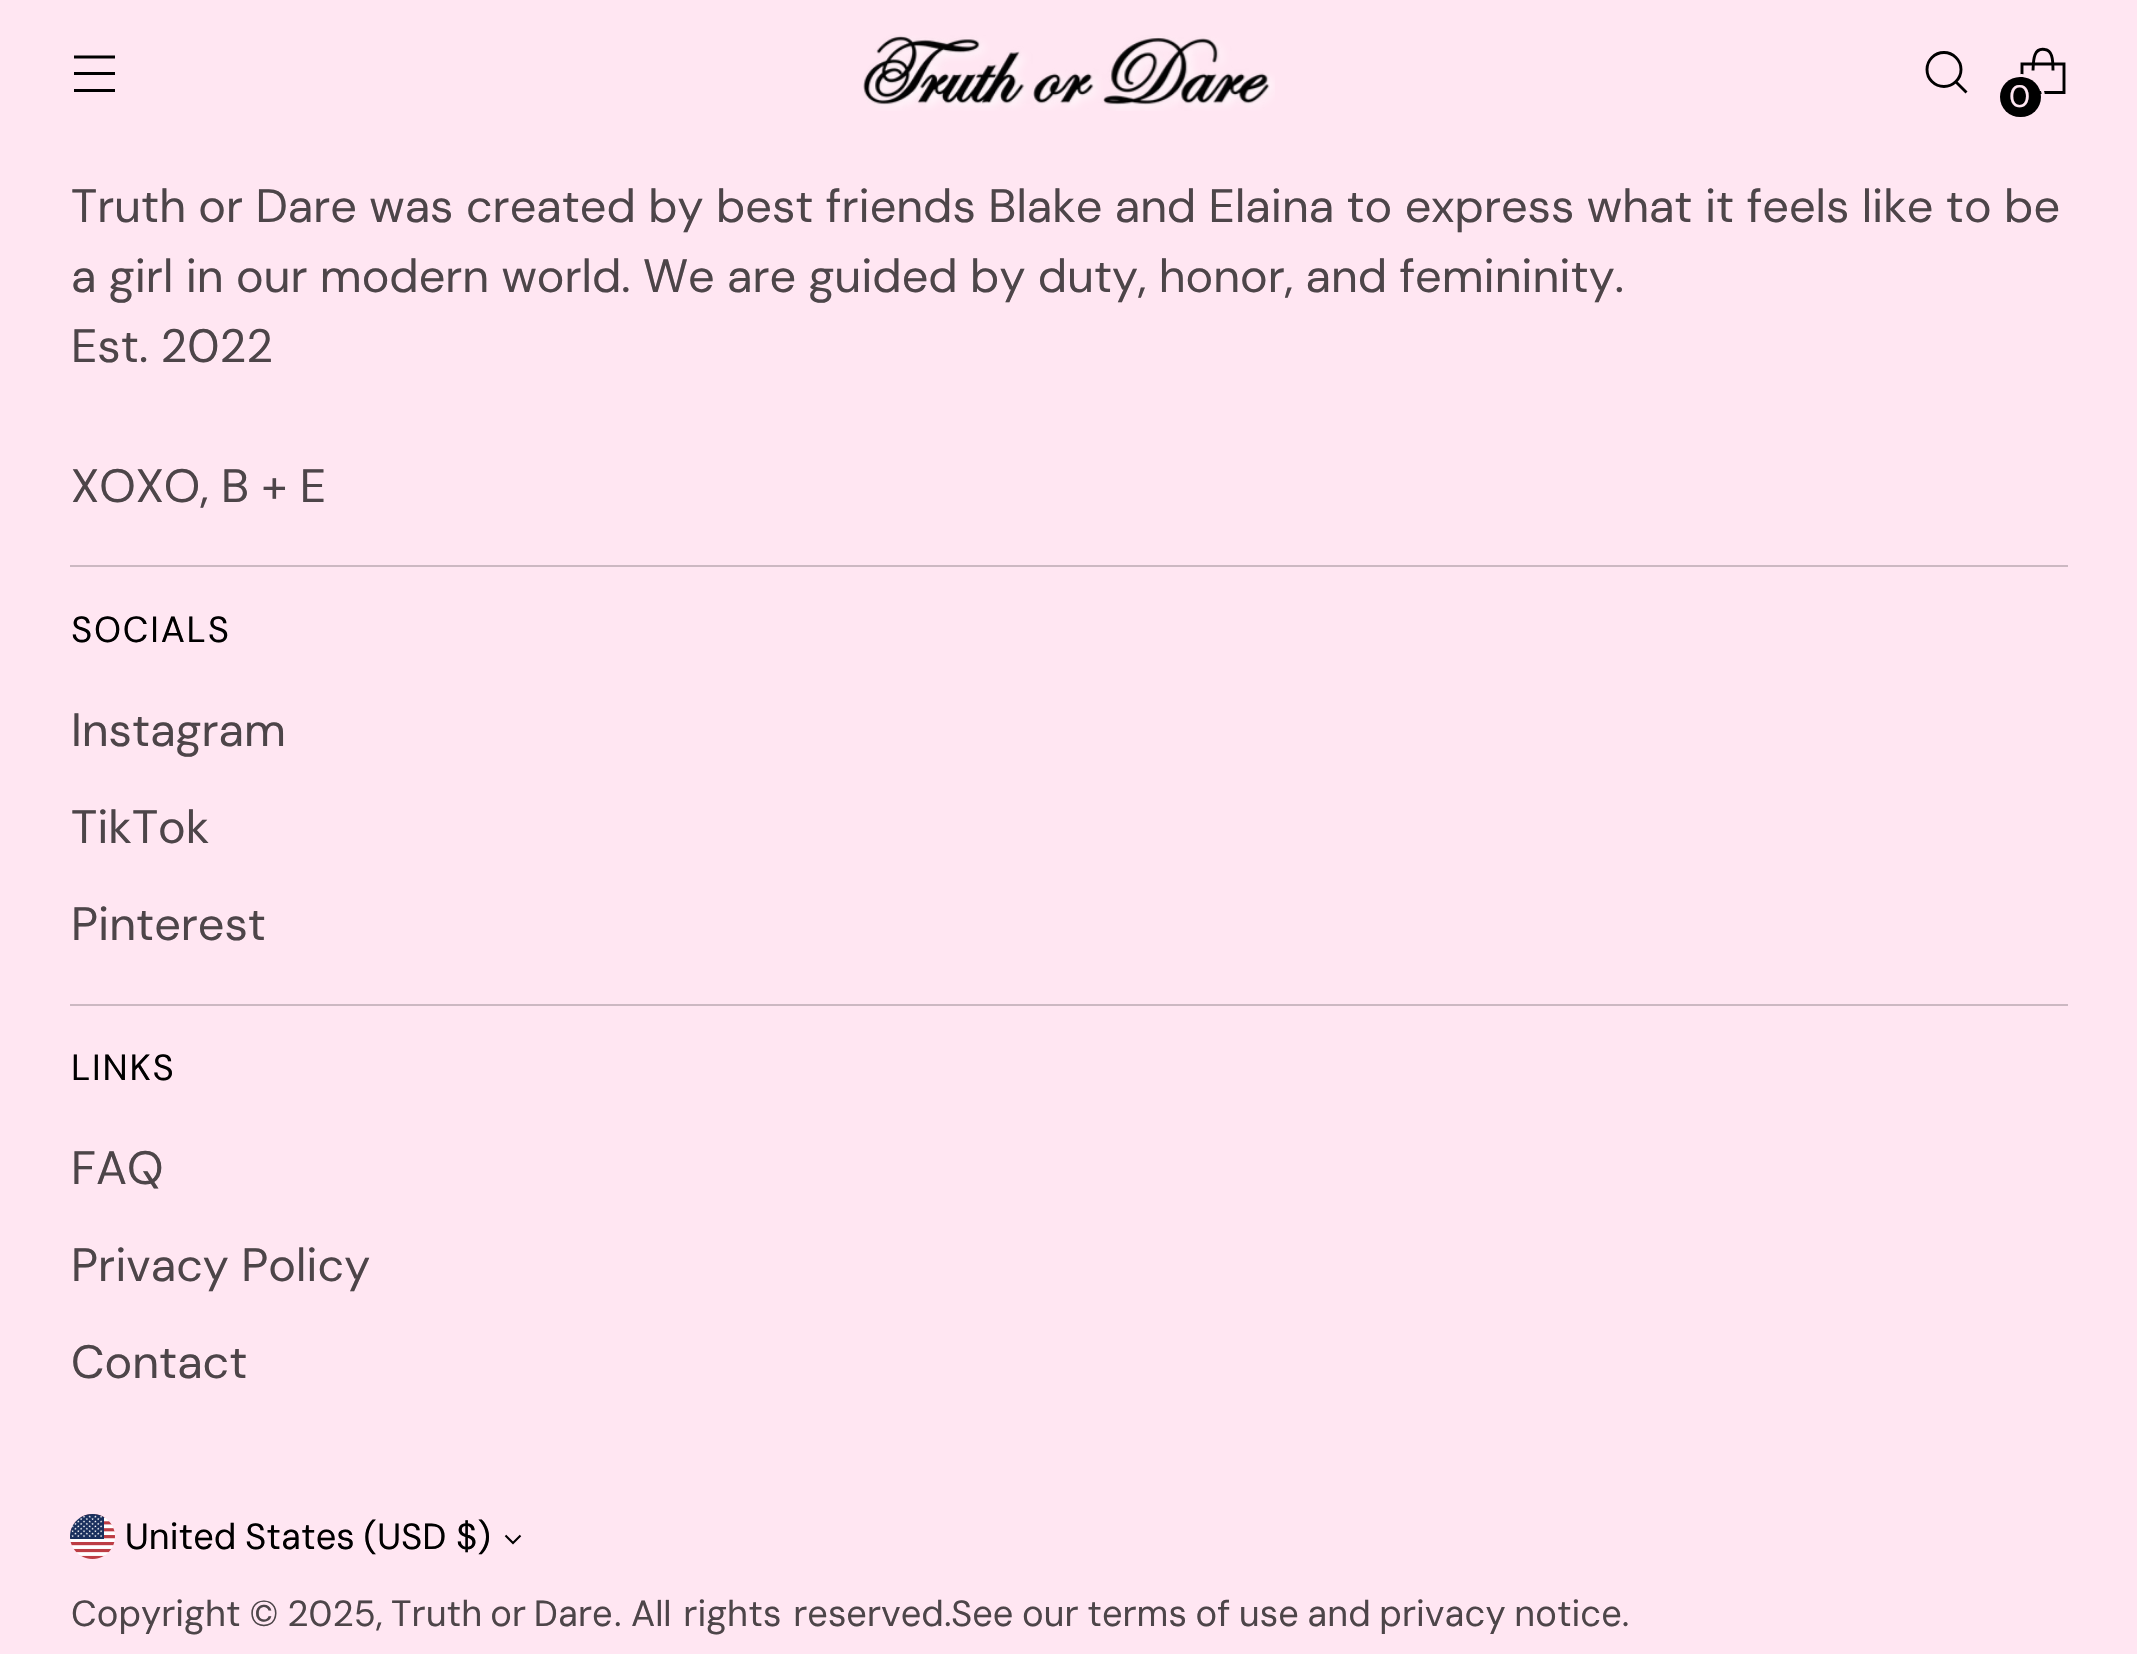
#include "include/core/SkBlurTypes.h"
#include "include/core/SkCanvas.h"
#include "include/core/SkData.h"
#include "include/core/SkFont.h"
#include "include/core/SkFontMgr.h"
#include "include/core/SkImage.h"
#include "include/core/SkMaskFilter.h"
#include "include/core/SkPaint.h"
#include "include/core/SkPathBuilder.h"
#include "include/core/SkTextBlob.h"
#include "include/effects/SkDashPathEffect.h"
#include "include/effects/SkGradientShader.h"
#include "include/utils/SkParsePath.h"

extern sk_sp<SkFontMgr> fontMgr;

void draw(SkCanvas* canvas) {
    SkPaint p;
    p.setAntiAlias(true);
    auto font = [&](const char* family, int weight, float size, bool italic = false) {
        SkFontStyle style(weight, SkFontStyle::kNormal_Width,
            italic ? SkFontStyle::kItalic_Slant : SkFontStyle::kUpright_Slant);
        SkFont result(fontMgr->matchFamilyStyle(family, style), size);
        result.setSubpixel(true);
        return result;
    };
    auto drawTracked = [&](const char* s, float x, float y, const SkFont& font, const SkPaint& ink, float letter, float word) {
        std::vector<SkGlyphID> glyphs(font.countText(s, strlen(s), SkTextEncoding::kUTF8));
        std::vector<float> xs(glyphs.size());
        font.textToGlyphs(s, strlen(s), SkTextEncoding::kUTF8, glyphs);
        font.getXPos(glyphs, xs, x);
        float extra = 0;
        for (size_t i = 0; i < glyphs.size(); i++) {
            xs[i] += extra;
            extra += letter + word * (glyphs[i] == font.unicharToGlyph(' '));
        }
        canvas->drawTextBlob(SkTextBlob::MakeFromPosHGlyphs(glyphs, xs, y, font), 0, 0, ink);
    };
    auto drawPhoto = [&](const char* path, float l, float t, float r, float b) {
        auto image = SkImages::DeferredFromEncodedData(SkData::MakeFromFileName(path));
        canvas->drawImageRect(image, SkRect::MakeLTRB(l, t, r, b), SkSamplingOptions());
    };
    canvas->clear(0xFFFFE6F2);
    p.setStyle(SkPaint::kStroke_Style);
    p.setStrokeWidth(2.9f);
    p.setColor(0xFF000000);
    canvas->drawPath(SkPathBuilder().moveTo(74, 73.5f).lineTo(115, 73.5f).moveTo(74, 57).lineTo(115, 57).moveTo(74, 90.5f).lineTo(115, 90.5f).detach(), p);
    drawPhoto("media/1.png", 863, 35, 1275, 111);
    p.setStrokeCap(SkPaint::kRound_Cap);
    canvas->drawPath(SkPathBuilder().moveTo(1944, 86.5f).cubicTo(1953, 86.5f, 1961, 79, 1961, 69.5f).cubicTo(1961, 60, 1953, 52.5f, 1944, 52.5f).cubicTo(1934.5f, 52.5f, 1927, 60, 1927, 69.5f).cubicTo(1927, 79, 1934.5f, 86.5f, 1944, 86.5f).close().detach(), p);
    p.setStrokeCap(SkPaint::kButt_Cap);
    canvas->drawPath(SkPathBuilder().moveTo(1956, 82).lineTo(1966.5f, 92.5f).detach(), p);
    p.setStrokeJoin(SkPaint::kBevel_Join);
    canvas->drawPath(SkPathBuilder().moveTo(2053, 70.5f).cubicTo(2053, 65.5f, 2053, 60, 2051.5f, 55.5f).cubicTo(2050.5f, 52.5f, 2048, 50, 2045, 49.5f).cubicTo(2032.5f, 47, 2033.5f, 63, 2033, 70.5f).detach(), p);
    p.setStrokeJoin(SkPaint::kMiter_Join);
    canvas->drawPath(SkPathBuilder().moveTo(2064, 92.5f).lineTo(2064, 64).lineTo(2022, 64).lineTo(2022, 92.5f).close().detach(), p);
    p.setStrokeWidth(3);
    p.setColor(0xFFFFE6F2);
    canvas->drawRoundRect(SkRect::MakeLTRB(1999.5f, 75.5f, 2043.5f, 120.5f), 22, 22, p);
    p.setStyle(SkPaint::kFill_Style);
    p.setColor(0xFF000000);
    canvas->drawRoundRect(SkRect::MakeLTRB(2000, 77, 2041, 117), 20, 20, p);
    auto font1 = font("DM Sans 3", 400, 31);
    p.setColor(0xFFFFE6F2);
    canvas->drawString("0", 2009, 107, font1, p);
    p.setColor(0xFFCCB8C2);
    canvas->drawRect(SkRect::MakeLTRB(70, 565, 2068, 567), p);
    auto font2 = font("DM Sans", 400, 46.75f);
    p.setColor(0xFF4D4549);
    {
        const struct { const char* s; float x, y; } items[] = {
            {"Truth or Dare was created by best friends Blake and Elaina to express what it feels like to be", 71, 222},
            {"a girl in our modern world. We are guided by duty, honor, and femininity.", 71, 292},
            {"Est. 2022", 71, 362},
            {"XOXO, B + E", 71, 502},
        };
        for (auto [s, x, y] : items) {
            canvas->drawString(s, x, y, font2, p);
        }
    }
    p.setColor(0xFFCCB8C2);
    canvas->drawRect(SkRect::MakeLTRB(70, 1004, 2068, 1006), p);
    auto font3 = font("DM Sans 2", 400, 36.3f);
    p.setColor(0xFF000000);
    drawTracked("SOCIALS", 71, 642, font3, p, 1.75f, 0);
    p.setColor(0xFF4D4549);
    {
        const struct { const char* s; float x, y; } items[] = {
            {"Instagram", 71, 746},
            {"TikTok", 71, 843},
            {"Pinterest", 71, 940},
        };
        for (auto [s, x, y] : items) {
            canvas->drawString(s, x, y, font2, p);
        }
    }
    p.setColor(0xFF000000);
    drawTracked("LINKS", 71, 1080, font3, p, 1.75f, 0);
    p.setColor(0xFF4D4549);
    {
        const struct { const char* s; float x, y; } items[] = {
            {"FAQ", 71, 1184},
            {"Privacy Policy", 71, 1281},
            {"Contact", 71, 1378},
        };
        for (auto [s, x, y] : items) {
            canvas->drawString(s, x, y, font2, p);
        }
    }
    drawPhoto("media/2.png", 70, 1514, 115, 1559);
    p.setColor(0xFF000000);
    drawTracked("United States (USD", 125, 1549, font3, p, 0, -1);
    canvas->drawString("$)", 456, 1549, font3, p);
    p.setStyle(SkPaint::kStroke_Style);
    p.setStrokeWidth(2.1f);
    canvas->drawPath(SkPathBuilder().moveTo(505.5f, 1535.5f).lineTo(513, 1543).lineTo(520.5f, 1535.5f).detach(), p);
    p.setStyle(SkPaint::kFill_Style);
    p.setColor(0xFF4D4549);
    drawTracked("Copyright © 2025,", 71, 1626, font3, p, 0, -1);
    drawTracked("Truth or Dare", 391, 1626, font3, p, 0, -2);
    canvas->drawString(".", 614, 1626, font3, p);
    drawTracked("All rights reserved.", 631, 1626, font3, p, 0, 2);
    drawTracked("See our terms of use and privacy notice.", 951, 1626, font3, p, 0, -1.25f);
}
